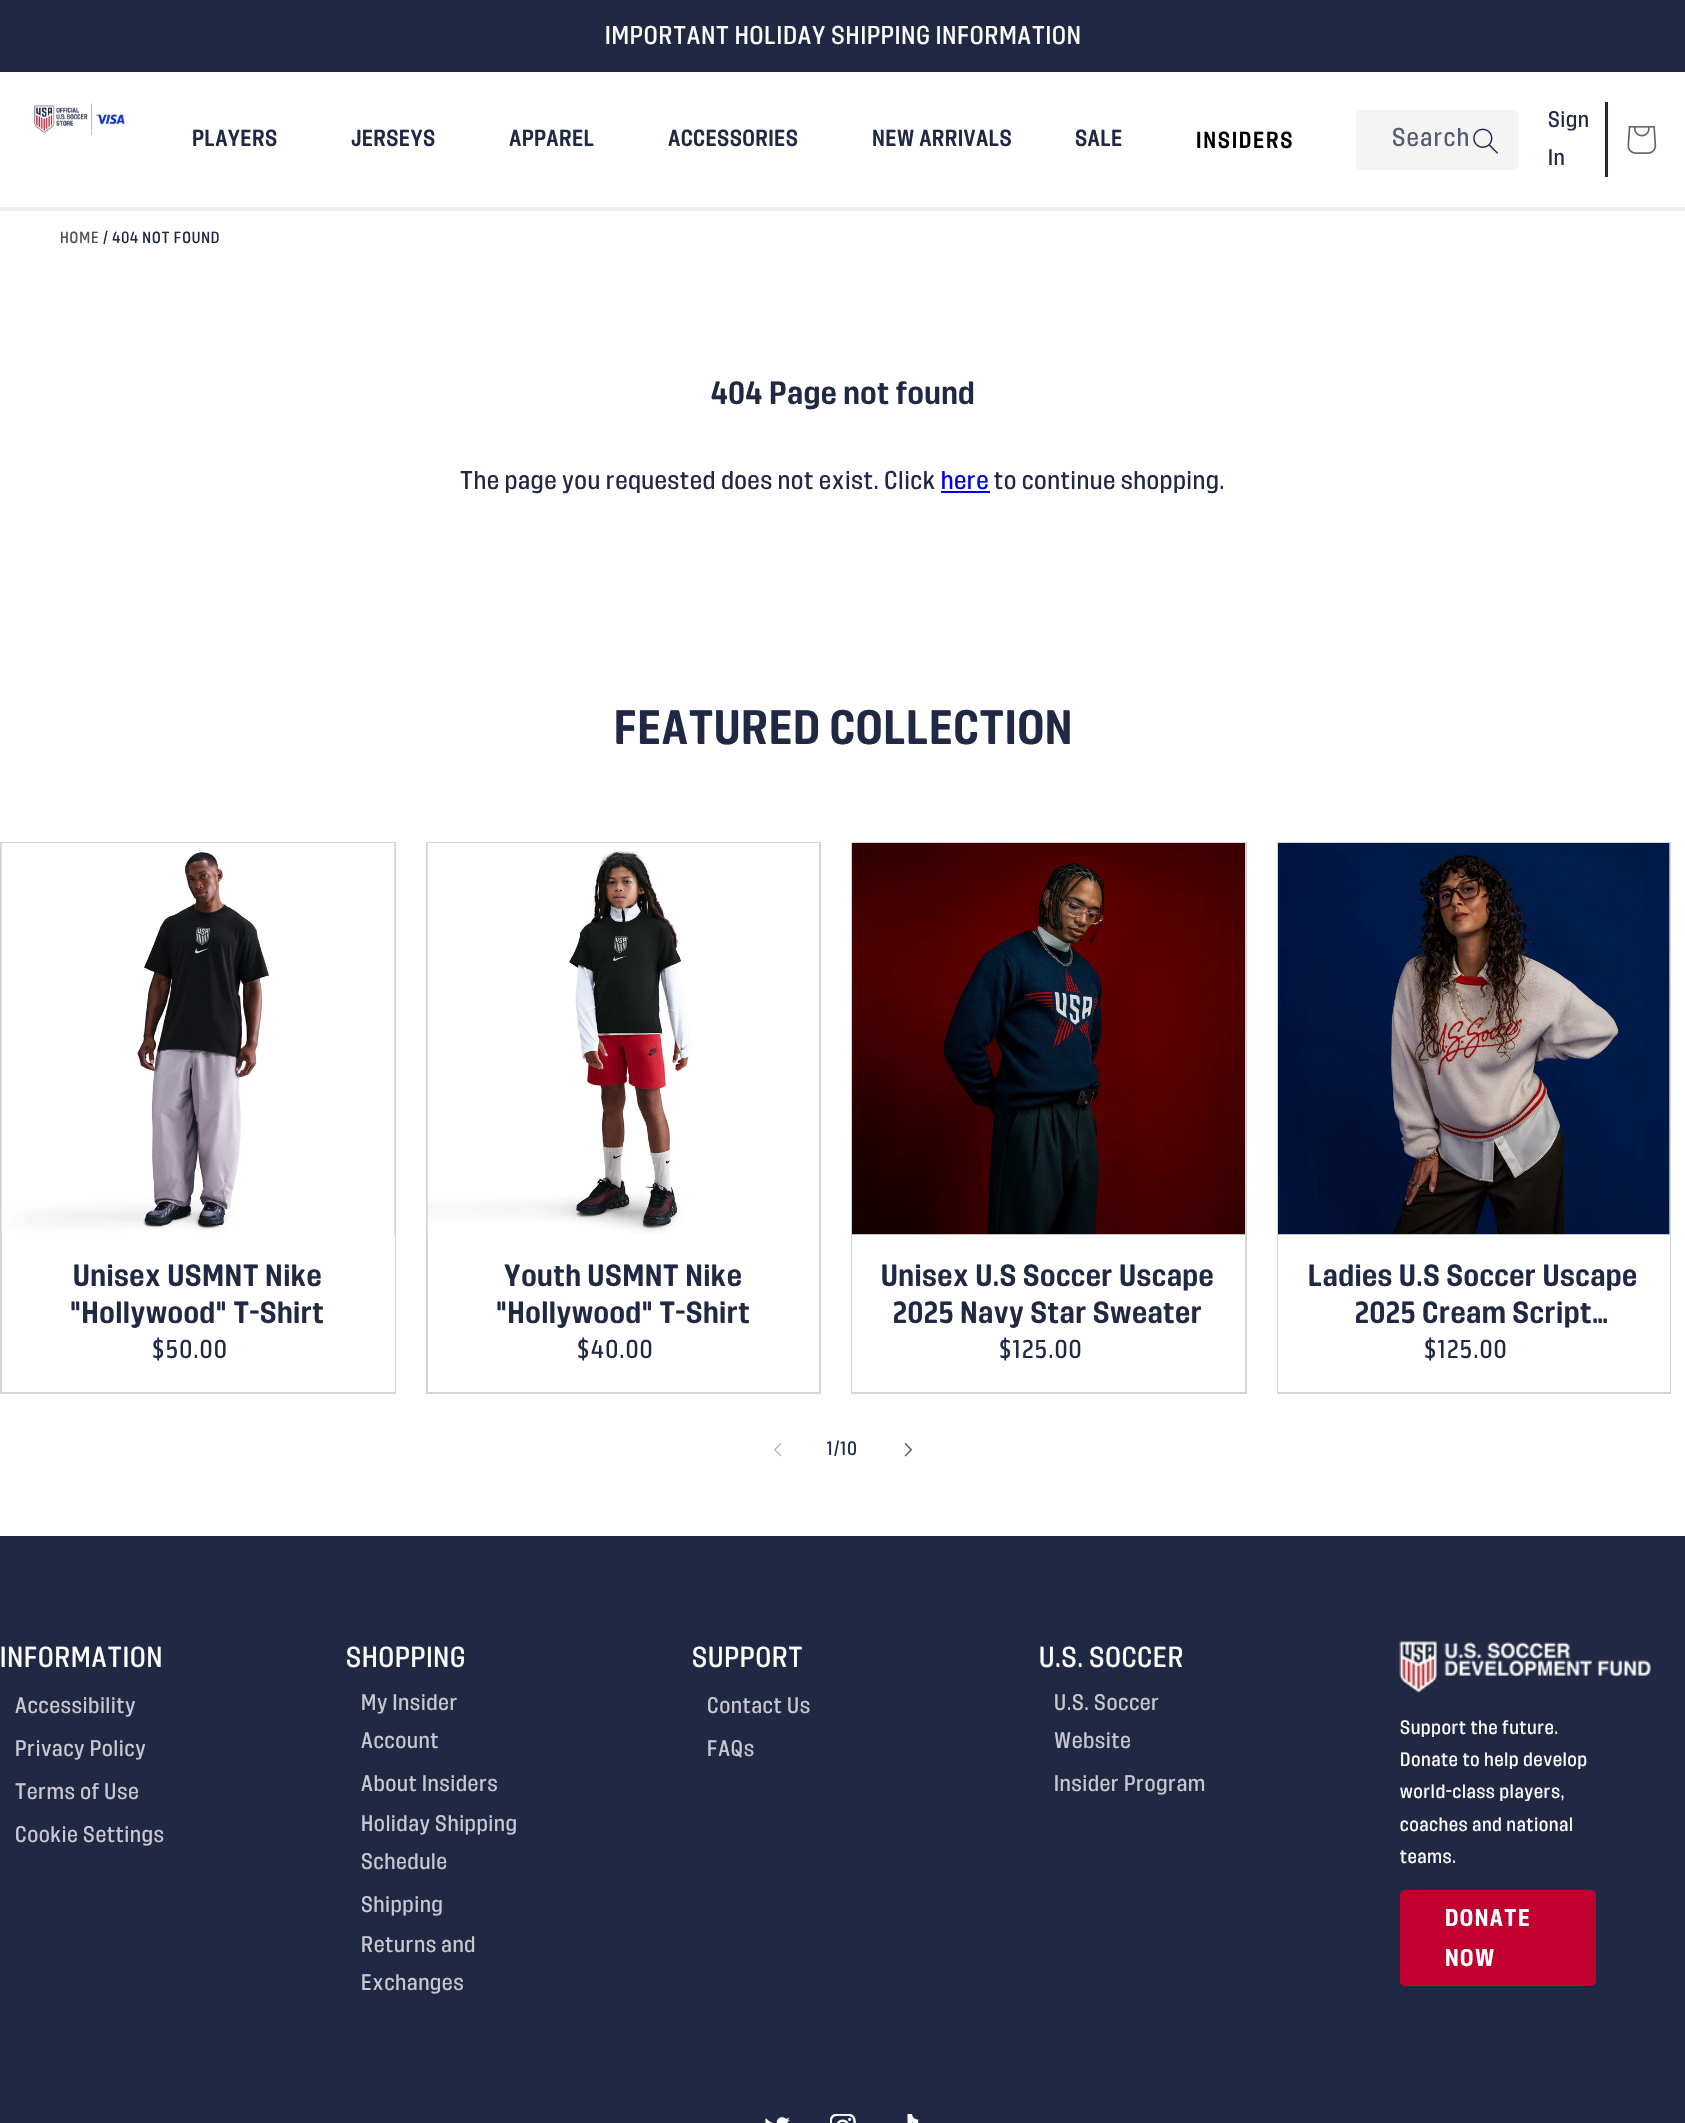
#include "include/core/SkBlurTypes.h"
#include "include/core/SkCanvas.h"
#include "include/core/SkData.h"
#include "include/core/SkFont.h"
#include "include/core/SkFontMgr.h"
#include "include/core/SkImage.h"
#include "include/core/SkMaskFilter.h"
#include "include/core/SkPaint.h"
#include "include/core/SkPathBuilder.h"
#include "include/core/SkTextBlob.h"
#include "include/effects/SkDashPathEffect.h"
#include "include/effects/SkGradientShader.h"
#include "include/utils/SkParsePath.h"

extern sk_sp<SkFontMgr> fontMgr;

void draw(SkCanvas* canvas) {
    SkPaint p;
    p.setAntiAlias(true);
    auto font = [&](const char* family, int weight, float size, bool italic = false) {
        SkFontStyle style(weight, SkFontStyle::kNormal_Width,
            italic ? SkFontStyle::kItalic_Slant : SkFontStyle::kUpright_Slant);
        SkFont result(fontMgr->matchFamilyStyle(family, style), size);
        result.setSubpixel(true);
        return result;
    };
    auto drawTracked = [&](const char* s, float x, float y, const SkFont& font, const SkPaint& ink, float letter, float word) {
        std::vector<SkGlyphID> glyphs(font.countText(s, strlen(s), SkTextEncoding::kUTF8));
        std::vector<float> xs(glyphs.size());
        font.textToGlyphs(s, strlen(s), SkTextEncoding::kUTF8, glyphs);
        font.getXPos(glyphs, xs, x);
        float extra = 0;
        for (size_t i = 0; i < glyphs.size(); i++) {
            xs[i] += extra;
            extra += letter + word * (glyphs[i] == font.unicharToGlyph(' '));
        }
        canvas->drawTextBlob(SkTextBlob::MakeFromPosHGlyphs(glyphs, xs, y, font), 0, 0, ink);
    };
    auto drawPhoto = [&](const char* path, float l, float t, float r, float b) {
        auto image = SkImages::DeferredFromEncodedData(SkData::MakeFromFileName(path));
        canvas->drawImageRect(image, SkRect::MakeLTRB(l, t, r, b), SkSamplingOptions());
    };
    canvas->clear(0xFFFFFFFF);
    p.setColor(0xFF212844);
    canvas->drawRect(SkRect::MakeLTRB(0, 0, 1685, 72), p);
    auto font1 = font("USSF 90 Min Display", 500, 24);
    p.setColor(0xFFFFFFFF);
    drawTracked("IMPORTANT HOLIDAY SHIPPING INFORMATION", 605, 44, font1, p, 0.9f, 0);
    p.setColor(0xFFEFF0F2);
    canvas->drawRect(SkRect::MakeLTRB(0, 207, 1685, 211), p);
    drawPhoto("media/1.png", 34, 103, 125, 135);
    auto font2 = font("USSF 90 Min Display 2", 700, 21);
    p.setColor(0xFF212844);
    {
        const struct { const char* s; float x, y; } items[] = {
            {"PLAYERS", 192, 146},
            {"JERSEYS", 351, 146},
            {"APPAREL", 509, 146},
            {"ACCESSORIES", 668, 146},
            {"NEW ARRIVALS", 872, 146},
            {"SALE", 1075, 146},
        };
        for (auto [s, x, y] : items) {
            drawTracked(s, x, y, font2, p, 0.9f, 0);
        }
    }
    p.setColor(0xFF000000);
    drawTracked("INSIDERS", 1196, 148, font2, p, 2.25f, 0);
    p.setColor(0xFFF4F4F4);
    canvas->drawRoundRect(SkRect::MakeLTRB(1356, 110, 1518, 170), 5, 5, p);
    p.setColor(0xFF565B70);
    drawTracked("Search", 1392, 146, font1, p, 1.5f, 0);
    drawPhoto("media/2.png", 1473, 128, 1498, 154);
    p.setColor(0xFF212844);
    canvas->drawRect(SkRect::MakeLTRB(1605, 102, 1608, 177), p);
    auto font3 = font("USSF 90 Min Display", 500, 21);
    drawTracked("Sign", 1548, 127, font3, p, 0.9f, 0);
    drawTracked("In", 1548, 165, font3, p, 0.9f, 0);
    drawPhoto("media/3.png", 1627, 126, 1657, 154);
    auto font4 = font("USSF 90 Min Display", 500, 15);
    p.setColor(0xFF545454);
    drawTracked("HOME", 60, 243, font4, p, 0.9f, 0);
    p.setColor(0xFF212844);
    drawTracked("/ 404 NOT FOUND", 103, 243, font4, p, 0.9f, 0);
    auto font5 = font("USSF 90 Min Display", 700, 30);
    drawTracked("404 Page not found", 711, 404, font5, p, 0.9f, 0);
    drawTracked("The page you requested does not exist. Click", 460, 489, font1, p, 0.9f, 0);
    p.setColor(0xFF0000EE);
    drawTracked("here", 941, 489, font1, p, 0.9f, 0);
    canvas->drawRect(SkRect::MakeLTRB(941, 491, 990, 493), p);
    p.setColor(0xFF212844);
    drawTracked("to continue shopping.", 994, 489, font1, p, 0.9f, 0);
    auto font6 = font("USSF 90 Min Display", 700, 45);
    drawTracked("FEATURED COLLECTION", 614, 744, font6, p, 0.9f, 0);
    p.setStyle(SkPaint::kStroke_Style);
    p.setStrokeWidth(2);
    p.setColor(0xFFD4D4D4);
    canvas->drawRect(SkRect::MakeLTRB(1, 843, 395, 1393), p);
    drawPhoto("media/4.png", 1, 843, 395, 1234);
    p.setStyle(SkPaint::kFill_Style);
    p.setColor(0xFFFFFFFF);
    canvas->drawRect(SkRect::MakeLTRB(394, 1235, 395, 1392), p);
    auto font7 = font("USSF 90 Min Display", 700, 28.5f);
    p.setColor(0xFF212844);
    drawTracked("Unisex USMNT Nike", 73, 1286, font7, p, 0.9f, 0);
    drawTracked("\"Hollywood\" T-Shirt", 70, 1323, font7, p, 0.9f, 0);
    drawTracked("$50.00", 152, 1358, font1, p, 1.5f, 0);
    p.setStyle(SkPaint::kStroke_Style);
    p.setColor(0xFFD4D4D4);
    canvas->drawRect(SkRect::MakeLTRB(427, 843, 820, 1393), p);
    drawPhoto("media/5.png", 427, 843, 819, 1234);
    p.setStyle(SkPaint::kFill_Style);
    p.setColor(0xFF212844);
    drawTracked("Youth USMNT Nike", 504, 1286, font7, p, 0.9f, 0);
    drawTracked("\"Hollywood\" T-Shirt", 496, 1323, font7, p, 0.9f, 0);
    drawTracked("$40.00", 577, 1358, font1, p, 1.5f, 0);
    p.setStyle(SkPaint::kStroke_Style);
    p.setColor(0xFFD4D4D4);
    canvas->drawRect(SkRect::MakeLTRB(852, 843, 1246, 1393), p);
    drawPhoto("media/6.png", 852, 843, 1245, 1235);
    p.setStyle(SkPaint::kFill_Style);
    p.setColor(0xFFFFFFFF);
    canvas->drawRect(SkRect::MakeLTRB(852, 1235, 853, 1392), p);
    p.setColor(0xFF212844);
    drawTracked("Unisex U.S Soccer Uscape", 881, 1286, font7, p, 0.9f, 0);
    drawTracked("2025 Navy Star Sweater", 893, 1323, font7, p, 0.9f, 0);
    drawTracked("$125.00", 999, 1358, font1, p, 1.5f, 0);
    p.setStyle(SkPaint::kStroke_Style);
    p.setColor(0xFFD4D4D4);
    canvas->drawRect(SkRect::MakeLTRB(1278, 843, 1670, 1393), p);
    drawPhoto("media/7.png", 1278, 843, 1670, 1235);
    p.setStyle(SkPaint::kFill_Style);
    p.setColor(0xFFFFFFFF);
    canvas->drawRect(SkRect::MakeLTRB(1278, 1235, 1670, 1392), p);
    p.setColor(0xFF212844);
    drawTracked("Ladies U.S Soccer Uscape", 1308, 1286, font7, p, 0.9f, 0);
    drawTracked("2025 Cream Script…", 1355, 1323, font7, p, 0.9f, 0);
    drawTracked("$125.00", 1424, 1358, font1, p, 1.5f, 0);
    drawPhoto("media/8.png", 774, 1443, 782, 1457);
    auto font8 = font("USSF 90 Min Display", 500, 18);
    drawTracked("1/10", 827, 1455, font8, p, 1, 0);
    drawPhoto("media/9.png", 904, 1443, 912, 1457);
    canvas->drawRect(SkRect::MakeLTRB(0, 1536, 1685, 2123), p);
    auto font9 = font("USSF 90 Min Display", 500, 27);
    p.setColor(0xFFFFFFFF);
    drawTracked("INFORMATION", 0, 1667, font9, p, 0.9f, 0);
    p.setColor(0xFFC8C9D0);
    {
        const struct { const char* s; float x, y; } items[] = {
            {"Accessibility", 15, 1713},
            {"Privacy Policy", 15, 1756},
            {"Terms of Use", 15, 1799},
            {"Cookie Settings", 15, 1842},
        };
        for (auto [s, x, y] : items) {
            drawTracked(s, x, y, font3, p, 0.9f, 0);
        }
    }
    p.setColor(0xFFFFFFFF);
    drawTracked("SHOPPING", 346, 1667, font9, p, 0.9f, 0);
    p.setColor(0xFFC8C9D0);
    {
        const struct { const char* s; float x, y; } items[] = {
            {"My Insider", 361, 1710},
            {"Account", 361, 1748},
            {"About Insiders", 361, 1791},
            {"Holiday Shipping", 361, 1831},
            {"Schedule", 361, 1869},
            {"Shipping", 361, 1912},
            {"Returns and", 361, 1952},
            {"Exchanges", 361, 1990},
        };
        for (auto [s, x, y] : items) {
            drawTracked(s, x, y, font3, p, 0.9f, 0);
        }
    }
    p.setColor(0xFFFFFFFF);
    drawTracked("SUPPORT", 692, 1667, font9, p, 0.9f, 0);
    p.setColor(0xFFC8C9D0);
    drawTracked("Contact Us", 707, 1713, font3, p, 0.9f, 0);
    drawTracked("FAQs", 707, 1756, font3, p, 0.9f, 0);
    p.setColor(0xFFFFFFFF);
    drawTracked("U.S. SOCCER", 1039, 1667, font9, p, 0.9f, 0);
    p.setColor(0xFFC8C9D0);
    {
        const struct { const char* s; float x, y; } items[] = {
            {"U.S. Soccer", 1054, 1710},
            {"Website", 1054, 1748},
            {"Insider Program", 1054, 1791},
        };
        for (auto [s, x, y] : items) {
            drawTracked(s, x, y, font3, p, 0.9f, 0);
        }
    }
    drawPhoto("media/10.png", 1399, 1641, 1651, 1694);
    p.setColor(0xFFFFFFFF);
    {
        const struct { const char* s; float x, y; } items[] = {
            {"Support the future.", 1400, 1734},
            {"Donate to help develop", 1400, 1766},
            {"world-class players,", 1400, 1798},
            {"coaches and national", 1400, 1831},
            {"teams.", 1400, 1863},
        };
        for (auto [s, x, y] : items) {
            drawTracked(s, x, y, font8, p, 0.9f, 0);
        }
    }
    p.setColor(0xFFC2002F);
    canvas->drawRoundRect(SkRect::MakeLTRB(1400, 1890, 1596, 1986), 5, 5, p);
    auto font10 = font("USSF 90 Min Display", 700, 22.5f);
    p.setColor(0xFFFFFFFF);
    drawTracked("DONATE", 1445, 1926, font10, p, 1.5f, 0);
    drawTracked("NOW", 1445, 1966, font10, p, 1.5f, 0);
    drawPhoto("media/11.png", 765, 2117, 790, 2123);
    drawPhoto("media/12.png", 830, 2114, 856, 2123);
    drawPhoto("media/13.png", 907, 2114, 919, 2123);
}
